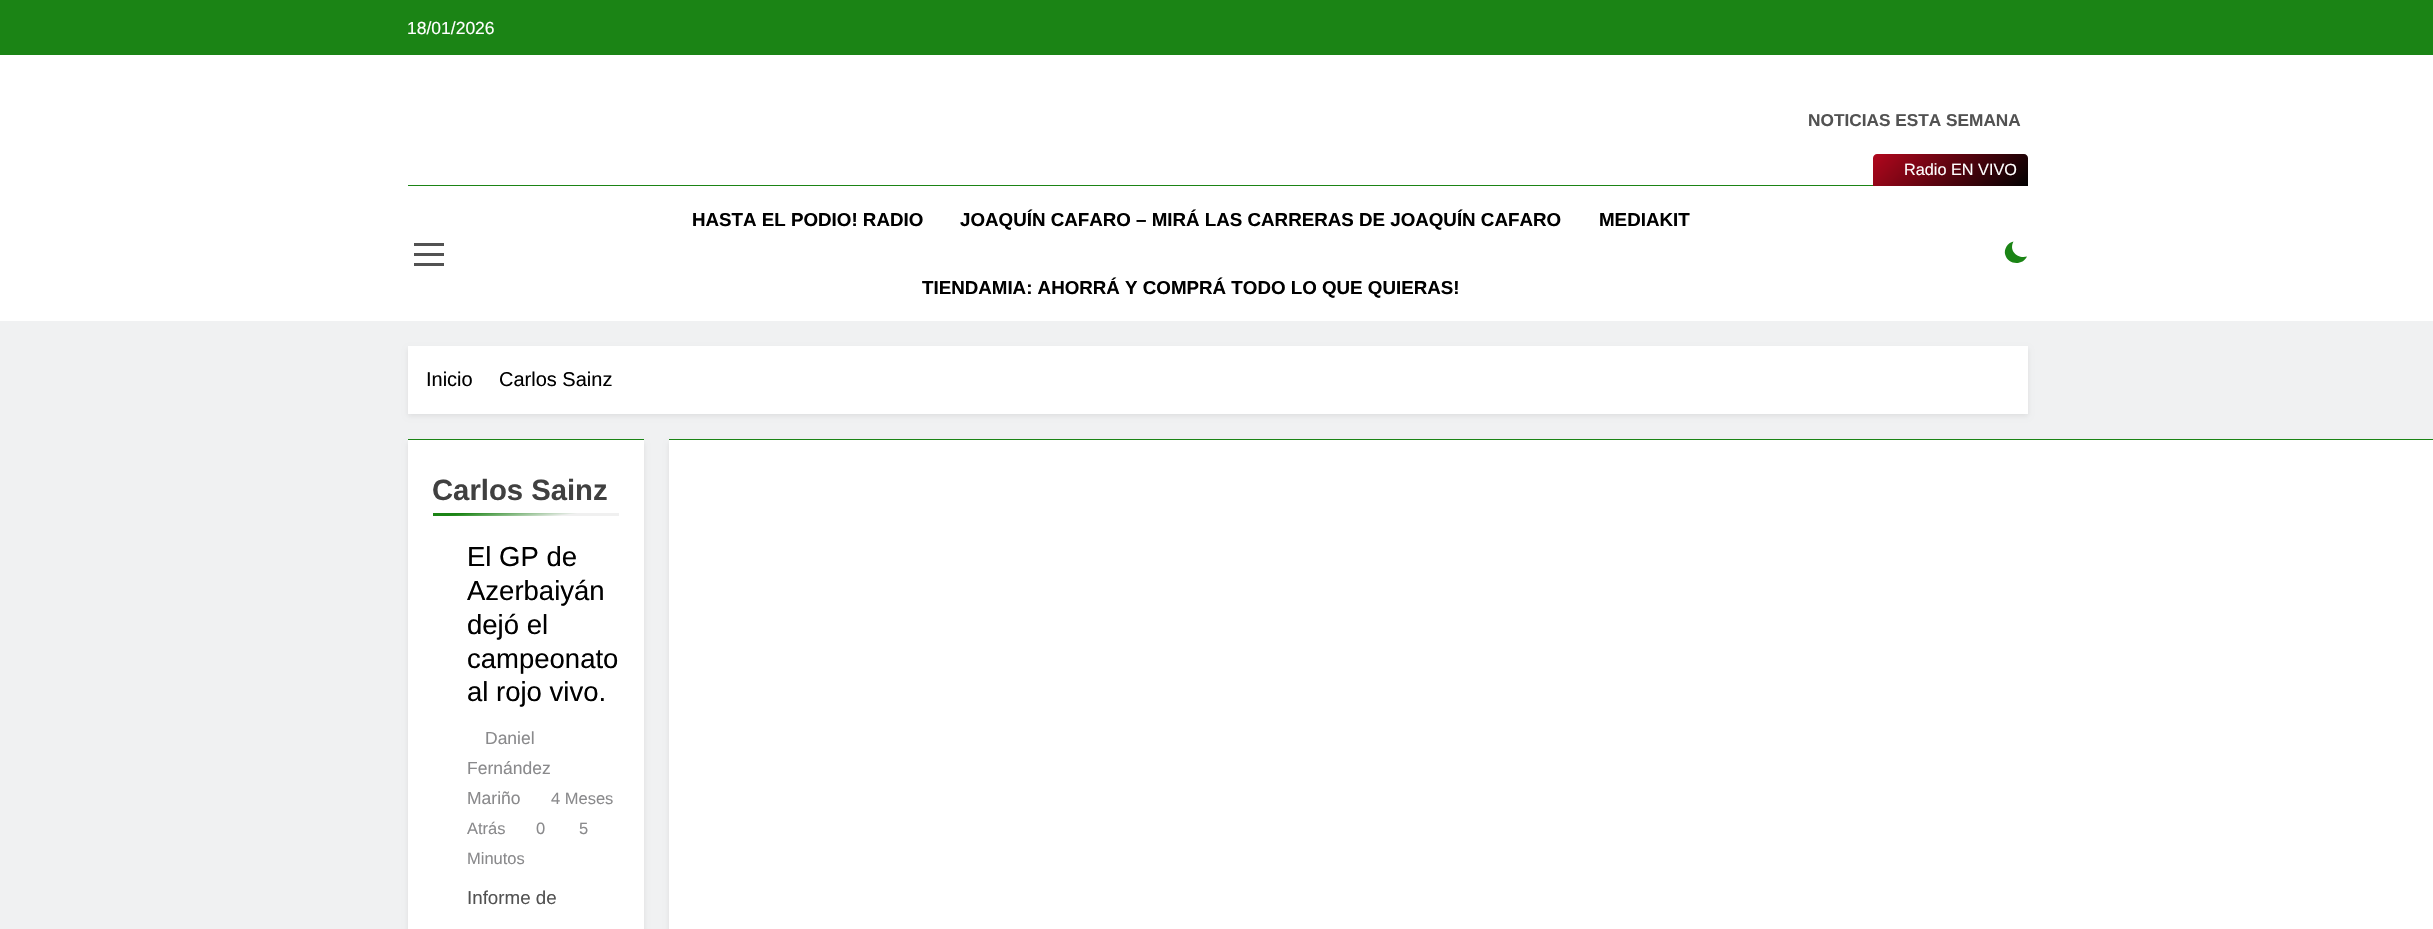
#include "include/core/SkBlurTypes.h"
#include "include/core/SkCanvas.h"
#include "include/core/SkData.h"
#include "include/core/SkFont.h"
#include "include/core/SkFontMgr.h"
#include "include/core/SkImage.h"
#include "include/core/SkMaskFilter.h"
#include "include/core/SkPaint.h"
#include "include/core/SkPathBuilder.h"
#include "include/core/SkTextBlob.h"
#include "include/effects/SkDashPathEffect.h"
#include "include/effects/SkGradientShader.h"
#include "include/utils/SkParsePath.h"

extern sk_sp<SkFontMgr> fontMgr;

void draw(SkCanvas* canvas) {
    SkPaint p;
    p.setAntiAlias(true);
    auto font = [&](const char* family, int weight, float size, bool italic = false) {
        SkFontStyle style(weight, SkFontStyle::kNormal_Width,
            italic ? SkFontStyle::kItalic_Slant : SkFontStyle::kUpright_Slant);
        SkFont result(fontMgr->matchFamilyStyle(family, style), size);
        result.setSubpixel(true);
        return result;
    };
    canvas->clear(0xFFF0F1F2);
    p.setColor(0xFF1B8415);
    canvas->drawRect(SkRect::MakeLTRB(0, 0, 2433, 55), p);
    auto font1 = font("Liberation Sans", 400, 17.5f);
    p.setColor(0xFFFFFFFF);
    canvas->drawString("18/01/2026", 407, 34, font1, p);
    canvas->drawRect(SkRect::MakeLTRB(0, 55, 2433, 321), p);
    auto font2 = font("Liberation Sans", 700, 17.25f);
    p.setColor(0xFF525252);
    canvas->drawString("NOTICIAS ESTA SEMANA", 1808, 126, font2, p);
    p.setColor(0xFF1B8415);
    canvas->drawRect(SkRect::MakeLTRB(408, 185, 1873, 186), p);
    {
        const SkColor colors[] = {0xFFB2071D, 0xFF010101};
        const float stops[] = {0, 1};
        const SkPoint ends[] = {{1903, 123}, {1997, 217}};
        p.setShader(SkGradientShader::MakeLinear(ends, colors, stops, 2, SkTileMode::kClamp));
        p.setAlpha(255);
    }
    canvas->drawPath(SkPathBuilder().moveTo(1877, 154).lineTo(2024, 154).cubicTo(2026, 154, 2028, 156, 2028, 158).lineTo(2028, 186).lineTo(1873, 186).lineTo(1873, 158).cubicTo(1873, 156, 1875, 154, 1877, 154).close().detach(), p);
    auto font3 = font("Liberation Sans", 400, 16.25f);
    p.setShader(nullptr);
    p.setColor(0xFFFFFFFF);
    canvas->drawString("Radio EN VIVO", 1904, 175, font3, p);
    {
        const struct { float l, t, r, b; SkColor color; } items[] = {
            {414, 243, 444, 246, 0xFF525252},
            {414, 253, 444, 256, 0xFF525252},
            {414, 263, 444, 266, 0xFF525252},
        };
        for (auto [l, t, r, b, color] : items) {
            p.setColor(color);
            canvas->drawRect(SkRect::MakeLTRB(l, t, r, b), p);
        }
    }
    auto font4 = font("Liberation Sans", 700, 18.75f);
    p.setColor(0xFF000000);
    {
        const struct { const char* s; float x, y; } items[] = {
            {"HASTA EL PODIO! RADIO", 692, 226},
            {"JOAQUÍN CAFARO – MIRÁ LAS CARRERAS DE JOAQUÍN CAFARO", 960, 226},
            {"MEDIAKIT", 1599, 226},
            {"TIENDAMIA: AHORRÁ Y COMPRÁ TODO LO QUE QUIERAS!", 922, 294},
        };
        for (auto [s, x, y] : items) {
            canvas->drawString(s, x, y, font4, p);
        }
    }
    p.setColor(0xFF1B8415);
    canvas->drawPath(SkPathBuilder().moveTo(2027, 256.5f).cubicTo(2017.5f, 259, 2008.5f, 251, 2013.5f, 241.5f).cubicTo(2010.5f, 242, 2008, 244, 2006.5f, 246.5f).cubicTo(2005, 249, 2004.5f, 251.5f, 2005, 254).cubicTo(2007.5f, 265, 2022.5f, 266, 2027, 256.5f).close().detach(), p);
    p.setColor(0x14000000);
    p.setMaskFilter(SkMaskFilter::MakeBlur(kNormal_SkBlurStyle, 2.5f));
    canvas->drawRect(SkRect::MakeLTRB(408, 349, 2028, 416), p);
    p.setMaskFilter(nullptr);
    p.setColor(0xFFFFFFFF);
    canvas->drawRect(SkRect::MakeLTRB(408, 346, 2028, 414), p);
    auto font5 = font("Liberation Sans", 400, 20);
    p.setColor(0xFF000000);
    canvas->drawString("Inicio", 426, 386, font5, p);
    canvas->drawString("Carlos Sainz", 499, 386, font5, p);
    p.setColor(0x14000000);
    p.setMaskFilter(SkMaskFilter::MakeBlur(kNormal_SkBlurStyle, 2.5f));
    canvas->drawRect(SkRect::MakeLTRB(408, 443, 644, 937), p);
    p.setMaskFilter(nullptr);
    {
        const struct { float l, t, r, b; SkColor color; } items[] = {
            {408, 440, 644, 929, 0xFFFFFFFF},
            {408, 439, 644, 440, 0xFF1B8415},
            {608, 513, 619, 516, 0xFFF0F0F0},
        };
        for (auto [l, t, r, b, color] : items) {
            p.setColor(color);
            canvas->drawRect(SkRect::MakeLTRB(l, t, r, b), p);
        }
    }
    auto font6 = font("Liberation Sans", 700, 29.25f);
    p.setColor(0xFF404040);
    canvas->drawString("Carlos Sainz", 432, 500, font6, p);
    {
        const SkColor colors[] = {0xFF1B8415, 0xFFF0F0F0};
        const float stops[] = {0, 1};
        const SkPoint ends[] = {{519, 506}, {521, 521}};
        p.setShader(SkGradientShader::MakeLinear(ends, colors, stops, 2, SkTileMode::kClamp));
        p.setAlpha(255);
    }
    canvas->drawRect(SkRect::MakeLTRB(433, 513, 608, 516), p);
    auto font7 = font("Liberation Sans", 400, 27.5f);
    p.setShader(nullptr);
    p.setColor(0xFF000000);
    {
        const struct { const char* s; float x, y; } items[] = {
            {"El GP de", 467, 566},
            {"Azerbaiyán", 467, 600},
            {"dejó el", 467, 634},
            {"campeonato", 467, 668},
            {"al rojo vivo.", 467, 701},
        };
        for (auto [s, x, y] : items) {
            canvas->drawString(s, x, y, font7, p);
        }
    }
    p.setColor(0xFF8A8A8C);
    {
        const struct { const char* s; float x, y; } items[] = {
            {"Daniel", 485, 744},
            {"Fernández", 467, 774},
            {"Mariño", 467, 804},
        };
        for (auto [s, x, y] : items) {
            canvas->drawString(s, x, y, font1, p);
        }
    }
    auto font8 = font("Liberation Sans", 400, 16.5f);
    {
        const struct { const char* s; float x, y; } items[] = {
            {"4 Meses", 551, 804},
            {"Atrás", 467, 834},
            {"0", 536, 834},
            {"5", 579, 834},
            {"Minutos", 467, 864},
        };
        for (auto [s, x, y] : items) {
            canvas->drawString(s, x, y, font8, p);
        }
    }
    auto font9 = font("Liberation Sans", 400, 18.75f);
    p.setColor(0xFF525252);
    canvas->drawString("Informe de", 467, 904, font9, p);
    p.setColor(0x14000000);
    p.setMaskFilter(SkMaskFilter::MakeBlur(kNormal_SkBlurStyle, 2.5f));
    canvas->drawRect(SkRect::MakeLTRB(669, 443, 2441, 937), p);
    p.setMaskFilter(nullptr);
    p.setColor(0xFFFFFFFF);
    canvas->drawRect(SkRect::MakeLTRB(669, 440, 2433, 929), p);
    p.setColor(0xFF1B8415);
    canvas->drawRect(SkRect::MakeLTRB(669, 439, 2433, 440), p);
}
